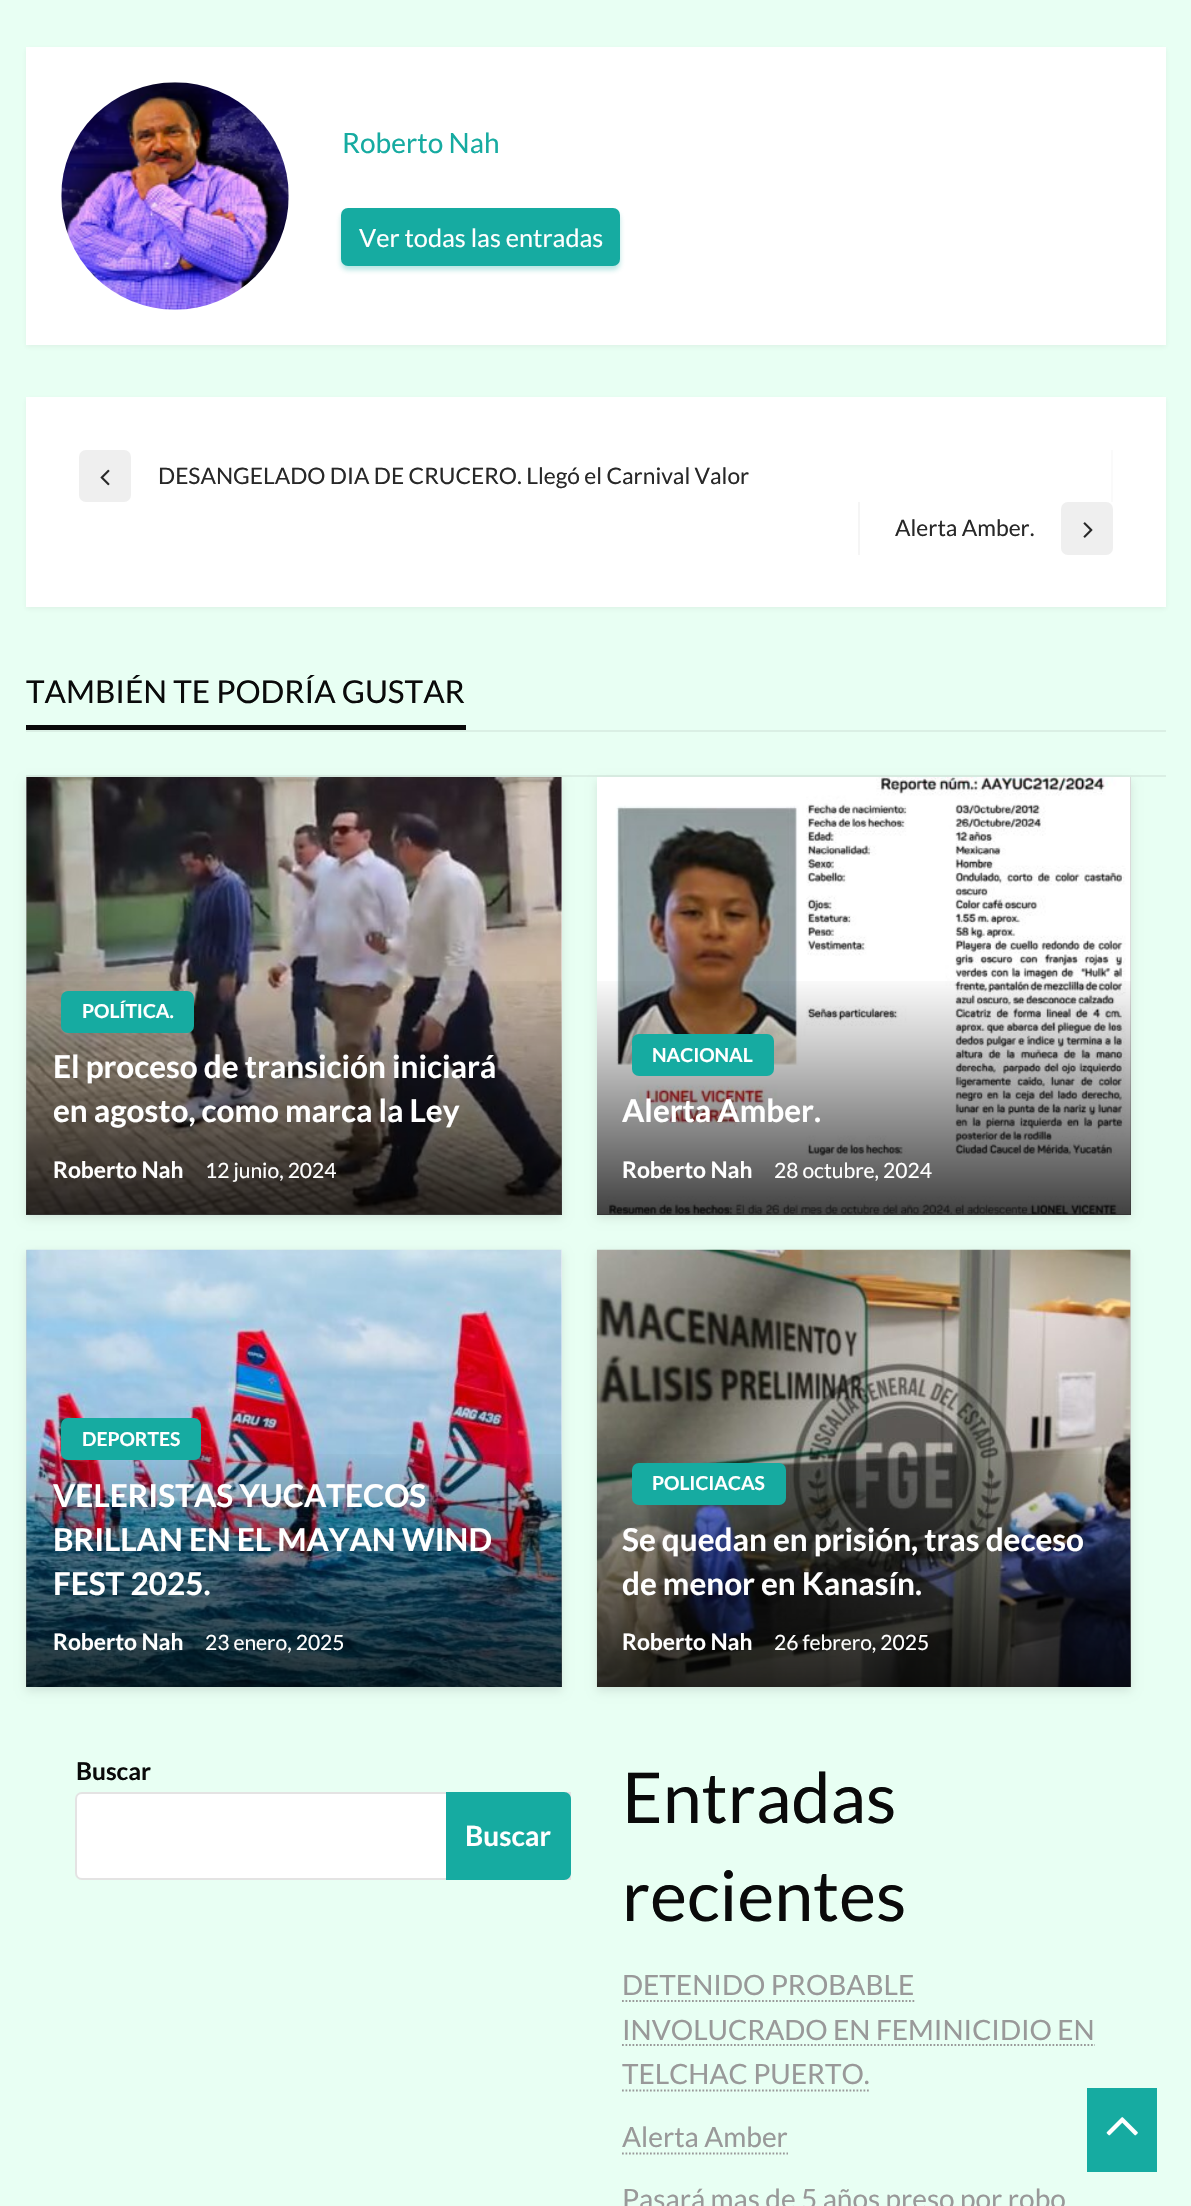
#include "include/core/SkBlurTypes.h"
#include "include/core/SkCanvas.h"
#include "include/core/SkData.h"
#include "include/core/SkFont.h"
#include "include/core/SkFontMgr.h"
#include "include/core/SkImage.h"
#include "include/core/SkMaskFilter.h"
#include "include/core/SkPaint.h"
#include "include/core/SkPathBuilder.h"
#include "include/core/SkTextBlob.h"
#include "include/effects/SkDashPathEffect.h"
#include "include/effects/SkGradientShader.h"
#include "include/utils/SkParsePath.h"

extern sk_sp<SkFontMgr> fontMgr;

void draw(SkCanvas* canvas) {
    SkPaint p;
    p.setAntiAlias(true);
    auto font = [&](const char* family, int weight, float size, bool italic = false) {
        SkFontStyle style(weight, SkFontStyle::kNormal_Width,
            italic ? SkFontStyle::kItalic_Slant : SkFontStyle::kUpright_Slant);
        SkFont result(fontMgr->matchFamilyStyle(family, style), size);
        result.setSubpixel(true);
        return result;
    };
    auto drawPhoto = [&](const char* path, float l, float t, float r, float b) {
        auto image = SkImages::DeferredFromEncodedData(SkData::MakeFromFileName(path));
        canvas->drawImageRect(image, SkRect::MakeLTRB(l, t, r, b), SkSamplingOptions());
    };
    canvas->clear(0xFFE8FFF3);
    p.setColor(0x0D1C1C1C);
    p.setMaskFilter(SkMaskFilter::MakeBlur(kNormal_SkBlurStyle, 2.5f));
    canvas->drawRect(SkRect::MakeLTRB(26, 49, 1166, 347), p);
    p.setMaskFilter(nullptr);
    p.setColor(0xFFFFFFFF);
    canvas->drawRect(SkRect::MakeLTRB(26, 47, 1166, 345), p);
    drawPhoto("media/1.png", 61, 82, 289, 310);
    auto font1 = font("Lato", 400, 28);
    p.setColor(0xFF16ABA1);
    canvas->drawString("Roberto Nah", 342, 153, font1, p);
    p.setColor(0x4D16ABA1);
    p.setMaskFilter(SkMaskFilter::MakeBlur(kNormal_SkBlurStyle, 2.5f));
    canvas->drawRoundRect(SkRect::MakeLTRB(341, 212, 620, 270), 7, 7, p);
    p.setMaskFilter(nullptr);
    p.setColor(0xFF16ABA1);
    canvas->drawRoundRect(SkRect::MakeLTRB(341, 208, 620, 266), 7, 7, p);
    auto font2 = font("Lato", 400, 25.25f);
    p.setColor(0xFFFFFFFF);
    canvas->drawString("Ver todas las entradas", 359, 247, font2, p);
    p.setColor(0x0D1C1C1C);
    p.setMaskFilter(SkMaskFilter::MakeBlur(kNormal_SkBlurStyle, 2.5f));
    canvas->drawRect(SkRect::MakeLTRB(26, 399, 1166, 609), p);
    p.setMaskFilter(nullptr);
    p.setColor(0xFFFFFFFF);
    canvas->drawRect(SkRect::MakeLTRB(26, 397, 1166, 607), p);
    p.setColor(0xFFFAFAFA);
    canvas->drawRect(SkRect::MakeLTRB(1111, 450, 1113, 502), p);
    p.setColor(0xFFEFEFEF);
    canvas->drawRoundRect(SkRect::MakeLTRB(79, 450, 131, 502), 7, 7, p);
    drawPhoto("media/2.png", 100, 469, 110, 486);
    auto font3 = font("Lato", 400, 22.75f);
    p.setColor(0xFF282828);
    canvas->drawString("DESANGELADO DIA DE CRUCERO. Llegó el Carnival Valor", 158, 484, font3, p);
    p.setColor(0xFFF5F5F5);
    canvas->drawRect(SkRect::MakeLTRB(858, 502, 860, 555), p);
    p.setColor(0xFF282828);
    canvas->drawString("Alerta Amber.", 895, 536, font3, p);
    p.setColor(0xFFEFEFEF);
    canvas->drawRoundRect(SkRect::MakeLTRB(1061, 502, 1113, 555), 7, 7, p);
    drawPhoto("media/3.png", 1083, 522, 1093, 538);
    {
        const struct { float l, t, r, b; SkColor color; } items[] = {
            {26, 775, 1166, 777, 0xFFDAEFE4},
            {26, 730, 1166, 732, 0xFFDAEFE4},
            {26, 725, 466, 730, 0xFF0A0A0A},
        };
        for (auto [l, t, r, b, color] : items) {
            p.setColor(color);
            canvas->drawRect(SkRect::MakeLTRB(l, t, r, b), p);
        }
    }
    auto font4 = font("Lato", 400, 31.5f);
    canvas->drawString("TAMBIÉN TE PODRÍA GUSTAR", 26, 703, font4, p);
    p.setColor(0x1A000000);
    p.setMaskFilter(SkMaskFilter::MakeBlur(kNormal_SkBlurStyle, 4.5f));
    canvas->drawRect(SkRect::MakeLTRB(26, 781, 562, 1218), p);
    p.setMaskFilter(nullptr);
    p.setColor(0xFFFFFFFF);
    canvas->drawRect(SkRect::MakeLTRB(561, 777, 562, 1214), p);
    canvas->save();
    canvas->clipRect(SkRect::MakeLTRB(26, 777, 562, 1215));
    p.setStyle(SkPaint::kStroke_Style);
    p.setStrokeWidth(2);
    p.setColor(0xFFCECECE);
    canvas->drawRect(SkRect::MakeLTRB(26, 776, 563, 1215), p);
    canvas->restore();
    drawPhoto("media/4.png", 26, 777, 562, 1215);
    p.setStyle(SkPaint::kFill_Style);
    {
        const SkColor colors[] = {0x00000000, 0x33000000, 0xBF000000};
        const float stops[] = {0, 0.3f, 1};
        const SkPoint ends[] = {{294, 973}, {294, 1215}};
        p.setShader(SkGradientShader::MakeLinear(ends, colors, stops, 3, SkTileMode::kClamp));
        p.setAlpha(255);
    }
    canvas->drawRect(SkRect::MakeLTRB(26, 981, 562, 1215), p);
    p.setShader(nullptr);
    p.setColor(0xFF16ABA1);
    canvas->drawRoundRect(SkRect::MakeLTRB(61, 991, 194, 1033), 7, 7, p);
    auto font5 = font("Lato", 700, 19.25f);
    p.setColor(0xFFFFFFFF);
    canvas->drawString("POLÍTICA.", 82, 1018, font5, p);
    auto font6 = font("Lato", 700, 31.5f);
    canvas->drawString("El proceso de transición iniciará", 53, 1078, font6, p);
    canvas->drawString("en agosto, como marca la Ley", 53, 1122, font6, p);
    auto font7 = font("Lato", 700, 22.75f);
    canvas->drawString("Roberto Nah", 53, 1178, font7, p);
    auto font8 = font("Lato", 400, 21);
    canvas->drawString("12 junio, 2024", 205, 1178, font8, p);
    p.setColor(0x1A000000);
    p.setMaskFilter(SkMaskFilter::MakeBlur(kNormal_SkBlurStyle, 4.5f));
    canvas->drawRect(SkRect::MakeLTRB(597, 781, 1131, 1218), p);
    p.setMaskFilter(nullptr);
    canvas->save();
    canvas->clipRect(SkRect::MakeLTRB(597, 777, 1131, 1215));
    p.setStyle(SkPaint::kStroke_Style);
    p.setColor(0xFFCECECE);
    canvas->drawRect(SkRect::MakeLTRB(596, 776, 1131, 1215), p);
    canvas->restore();
    drawPhoto("media/5.png", 597, 777, 1131, 1215);
    p.setStyle(SkPaint::kFill_Style);
    {
        const SkColor colors[] = {0x00000000, 0x33000000, 0xBF000000};
        const float stops[] = {0, 0.3f, 1};
        const SkPoint ends[] = {{864, 973}, {864, 1215}};
        p.setShader(SkGradientShader::MakeLinear(ends, colors, stops, 3, SkTileMode::kClamp));
        p.setAlpha(255);
    }
    canvas->drawRect(SkRect::MakeLTRB(597, 981, 1131, 1215), p);
    p.setShader(nullptr);
    p.setColor(0xFF16ABA1);
    canvas->drawRoundRect(SkRect::MakeLTRB(632, 1034, 774, 1076), 7, 7, p);
    p.setColor(0xFFFFFFFF);
    canvas->drawString("NACIONAL", 652, 1062, font5, p);
    canvas->drawString("Alerta Amber.", 622, 1122, font6, p);
    canvas->drawString("Roberto Nah", 622, 1178, font7, p);
    canvas->drawString("28 octubre, 2024", 774, 1178, font8, p);
    p.setColor(0x1A000000);
    p.setMaskFilter(SkMaskFilter::MakeBlur(kNormal_SkBlurStyle, 4.5f));
    canvas->drawRect(SkRect::MakeLTRB(26, 1253, 562, 1691), p);
    p.setMaskFilter(nullptr);
    p.setColor(0xFFFFFFFF);
    canvas->drawRect(SkRect::MakeLTRB(561, 1250, 562, 1687), p);
    canvas->save();
    canvas->clipRect(SkRect::MakeLTRB(26, 1250, 562, 1687));
    p.setStyle(SkPaint::kStroke_Style);
    p.setColor(0xFFCECECE);
    canvas->drawRect(SkRect::MakeLTRB(26, 1249, 563, 1688), p);
    canvas->restore();
    drawPhoto("media/6.png", 26, 1249, 562, 1687);
    p.setStyle(SkPaint::kFill_Style);
    {
        const SkColor colors[] = {0x00000000, 0x33000000, 0xBF000000};
        const float stops[] = {0, 0.3f, 1};
        const SkPoint ends[] = {{294, 1446}, {294, 1687}};
        p.setShader(SkGradientShader::MakeLinear(ends, colors, stops, 3, SkTileMode::kClamp));
        p.setAlpha(255);
    }
    canvas->drawRect(SkRect::MakeLTRB(26, 1454, 562, 1687), p);
    p.setShader(nullptr);
    p.setColor(0xFF16ABA1);
    canvas->drawRoundRect(SkRect::MakeLTRB(61, 1418, 201, 1460), 7, 7, p);
    p.setColor(0xFFFFFFFF);
    canvas->drawString("DEPORTES", 82, 1446, font5, p);
    {
        const struct { const char* s; float x, y; } items[] = {
            {"VELERISTAS YUCATECOS", 53, 1507},
            {"BRILLAN EN EL MAYAN WIND", 53, 1551},
            {"FEST 2025.", 53, 1595},
        };
        for (auto [s, x, y] : items) {
            canvas->drawString(s, x, y, font6, p);
        }
    }
    canvas->drawString("Roberto Nah", 53, 1650, font7, p);
    canvas->drawString("23 enero, 2025", 205, 1650, font8, p);
    p.setColor(0x1A000000);
    p.setMaskFilter(SkMaskFilter::MakeBlur(kNormal_SkBlurStyle, 4.5f));
    canvas->drawRect(SkRect::MakeLTRB(597, 1253, 1131, 1691), p);
    p.setMaskFilter(nullptr);
    canvas->save();
    canvas->clipRect(SkRect::MakeLTRB(597, 1250, 1131, 1687));
    p.setStyle(SkPaint::kStroke_Style);
    p.setColor(0xFFCECECE);
    canvas->drawRect(SkRect::MakeLTRB(596, 1249, 1131, 1688), p);
    canvas->restore();
    drawPhoto("media/7.png", 596, 1249, 1131, 1687);
    p.setStyle(SkPaint::kFill_Style);
    {
        const SkColor colors[] = {0x00000000, 0x33000000, 0xBF000000};
        const float stops[] = {0, 0.3f, 1};
        const SkPoint ends[] = {{864, 1446}, {864, 1687}};
        p.setShader(SkGradientShader::MakeLinear(ends, colors, stops, 3, SkTileMode::kClamp));
        p.setAlpha(255);
    }
    canvas->drawRect(SkRect::MakeLTRB(597, 1454, 1131, 1687), p);
    p.setShader(nullptr);
    p.setColor(0xFF16ABA1);
    canvas->drawRoundRect(SkRect::MakeLTRB(632, 1463, 786, 1505), 7, 7, p);
    p.setColor(0xFFFFFFFF);
    canvas->drawString("POLICIACAS", 652, 1490, font5, p);
    canvas->drawString("Se quedan en prisión, tras deceso", 622, 1551, font6, p);
    canvas->drawString("de menor en Kanasín.", 622, 1595, font6, p);
    canvas->drawString("Roberto Nah", 622, 1650, font7, p);
    canvas->drawString("26 febrero, 2025", 774, 1650, font8, p);
    auto font9 = font("Lato", 700, 24.5f);
    p.setColor(0xFF0A0A0A);
    canvas->drawString("Buscar", 76, 1780, font9, p);
    p.setColor(0xFFFFFFFF);
    canvas->drawPath(SkPathBuilder().moveTo(82, 1793).lineTo(570, 1793).lineTo(570, 1879).lineTo(82, 1879).cubicTo(78.5f, 1879, 76, 1876.5f, 76, 1873).lineTo(76, 1799).cubicTo(76, 1795.5f, 78.5f, 1793, 82, 1793).close().detach(), p);
    p.setStyle(SkPaint::kStroke_Style);
    p.setColor(0xFFE4E3E3);
    canvas->drawPath(SkPathBuilder().moveTo(82, 1793).lineTo(570, 1793).lineTo(570, 1879).lineTo(82, 1879).cubicTo(78.5f, 1879, 76, 1876.5f, 76, 1873).lineTo(76, 1799).cubicTo(76, 1795.5f, 78.5f, 1793, 82, 1793).close().detach(), p);
    p.setStyle(SkPaint::kFill_Style);
    p.setColor(0xFF16ABA1);
    canvas->drawPath(SkPathBuilder().moveTo(446, 1792).lineTo(564, 1792).cubicTo(568, 1792, 571, 1795, 571, 1799).lineTo(571, 1873).cubicTo(571, 1877, 568, 1880, 564, 1880).lineTo(446, 1880).close().detach(), p);
    auto font10 = font("Lato", 700, 28);
    p.setColor(0xFFFFFFFF);
    canvas->drawString("Buscar", 465, 1846, font10, p);
    auto font11 = font("Lato", 400, 70);
    p.setColor(0xFF0A0A0A);
    canvas->drawString("Entradas", 622, 1823, font11, p);
    canvas->drawString("recientes", 622, 1921, font11, p);
    p.setColor(0xFF999999);
    canvas->drawString("DETENIDO PROBABLE", 622, 1995, font1, p);
    p.setStyle(SkPaint::kStroke_Style);
    p.setStrokeWidth(1.8f);
    p.setPathEffect(SkDashPathEffect::Make({{1.75f, 1.75f}}, 0));
    canvas->drawPath(SkPathBuilder().moveTo(622, 2001).lineTo(914.5f, 2001).detach(), p);
    p.setPathEffect(nullptr);
    p.setStyle(SkPaint::kFill_Style);
    canvas->drawString("INVOLUCRADO EN FEMINICIDIO EN", 622, 2040, font1, p);
    p.setStyle(SkPaint::kStroke_Style);
    p.setPathEffect(SkDashPathEffect::Make({{1.75f, 1.75f}}, 0));
    canvas->drawPath(SkPathBuilder().moveTo(622, 2045).lineTo(1095, 2045).detach(), p);
    p.setPathEffect(nullptr);
    p.setStyle(SkPaint::kFill_Style);
    canvas->drawString("TELCHAC PUERTO.", 622, 2084, font1, p);
    p.setStyle(SkPaint::kStroke_Style);
    p.setPathEffect(SkDashPathEffect::Make({{1.75f, 1.75f}}, 0));
    canvas->drawPath(SkPathBuilder().moveTo(622, 2090.5f).lineTo(870, 2090.5f).detach(), p);
    p.setPathEffect(nullptr);
    p.setStyle(SkPaint::kFill_Style);
    canvas->drawString("Alerta Amber", 622, 2147, font1, p);
    p.setStyle(SkPaint::kStroke_Style);
    p.setPathEffect(SkDashPathEffect::Make({{1.75f, 1.75f}}, 0));
    canvas->drawPath(SkPathBuilder().moveTo(622, 2153.5f).lineTo(788, 2153.5f).detach(), p);
    p.setPathEffect(nullptr);
    p.setStyle(SkPaint::kFill_Style);
    canvas->drawString("Pasará mas de 5 años preso por robo", 622, 2209, font1, p);
    p.setColor(0xFF16ABA1);
    canvas->drawRect(SkRect::MakeLTRB(1087, 2088, 1157, 2172), p);
    drawPhoto("media/8.png", 1106, 2117, 1138, 2136);
}
